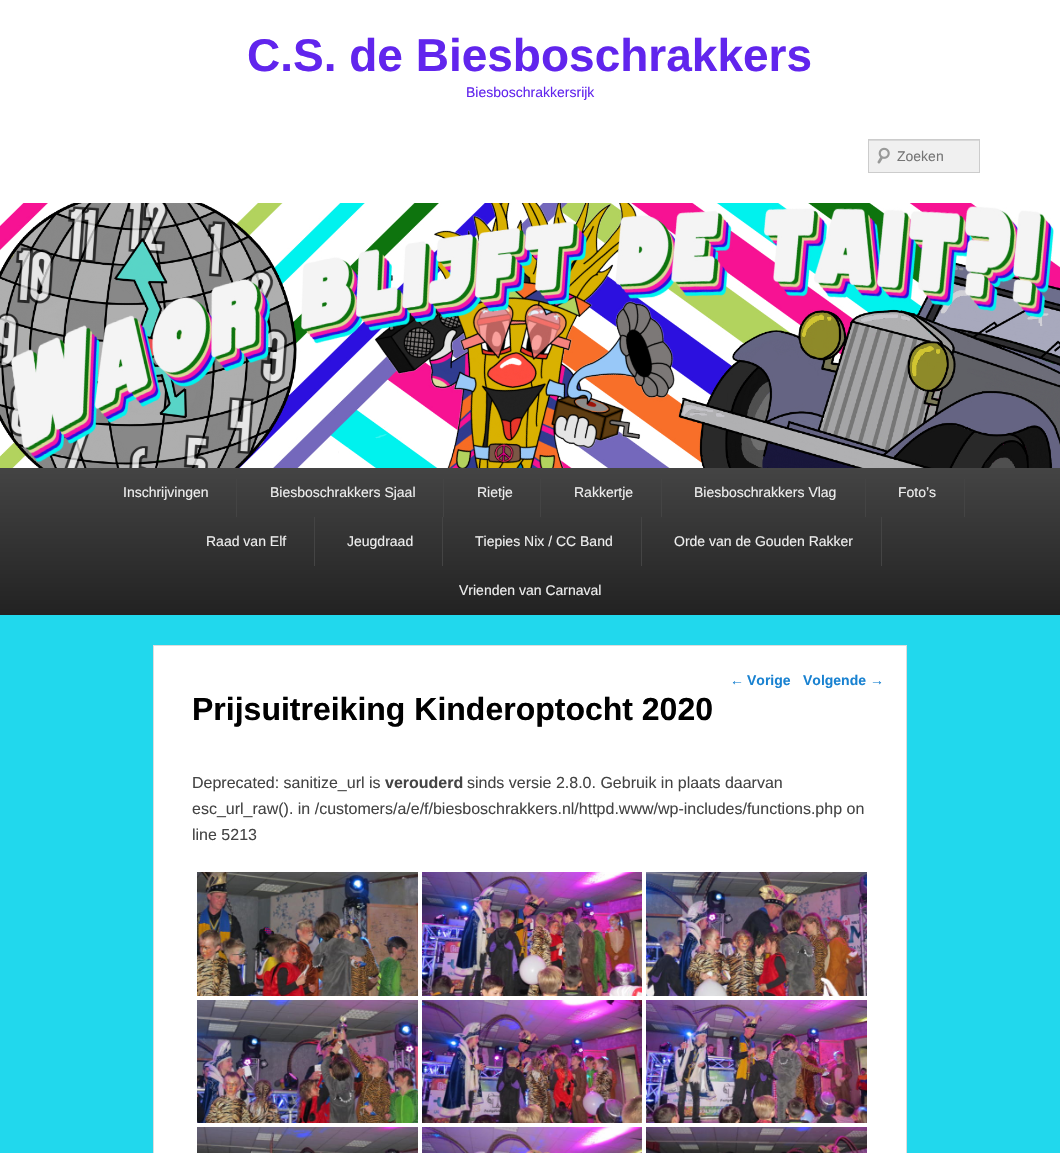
#include "include/core/SkBlurTypes.h"
#include "include/core/SkCanvas.h"
#include "include/core/SkData.h"
#include "include/core/SkFont.h"
#include "include/core/SkFontMgr.h"
#include "include/core/SkImage.h"
#include "include/core/SkMaskFilter.h"
#include "include/core/SkPaint.h"
#include "include/core/SkPathBuilder.h"
#include "include/core/SkTextBlob.h"
#include "include/effects/SkDashPathEffect.h"
#include "include/effects/SkGradientShader.h"
#include "include/utils/SkParsePath.h"

extern sk_sp<SkFontMgr> fontMgr;

void draw(SkCanvas* canvas) {
    SkPaint p;
    p.setAntiAlias(true);
    auto font = [&](const char* family, int weight, float size, bool italic = false) {
        SkFontStyle style(weight, SkFontStyle::kNormal_Width,
            italic ? SkFontStyle::kItalic_Slant : SkFontStyle::kUpright_Slant);
        SkFont result(fontMgr->matchFamilyStyle(family, style), size);
        result.setSubpixel(true);
        return result;
    };
    auto drawPhoto = [&](const char* path, float l, float t, float r, float b) {
        auto image = SkImages::DeferredFromEncodedData(SkData::MakeFromFileName(path));
        canvas->drawImageRect(image, SkRect::MakeLTRB(l, t, r, b), SkSamplingOptions());
    };
    canvas->clear(0xFF21D8ED);
    p.setColor(0xFFFFFFFF);
    canvas->drawRect(SkRect::MakeLTRB(0, 0, 1060, 203), p);
    auto font1 = font("Liberation Sans", 700, 46);
    p.setColor(0xFF6125ED);
    canvas->drawString("C.S. de Biesboschrakkers", 247, 71, font1, p);
    auto font2 = font("Liberation Sans", 400, 14);
    canvas->drawString("Biesboschrakkersrijk", 466, 97, font2, p);
    p.setColor(0xFFF0F0F0);
    canvas->drawRect(SkRect::MakeLTRB(869, 141, 979, 172), p);
    drawPhoto("media/1.png", 877, 147, 890, 164);
    p.setColor(0xFFD8D8D8);
    canvas->drawRect(SkRect::MakeLTRB(869, 140, 979, 141), p);
    p.setStyle(SkPaint::kStroke_Style);
    p.setStrokeWidth(1);
    p.setColor(0xFFCCCCCC);
    canvas->drawRect(SkRect::MakeLTRB(868.5f, 139.5f, 979.5f, 172.5f), p);
    p.setStyle(SkPaint::kFill_Style);
    p.setColor(0xFF757575);
    canvas->drawString("Zoeken", 897, 161, font2, p);
    drawPhoto("media/2.png", 0, 203, 1060, 468);
    {
        const SkColor colors[] = {0xFF444444, 0xFF222222};
        const float stops[] = {0, 1};
        const SkPoint ends[] = {{530, 468}, {530, 615}};
        p.setShader(SkGradientShader::MakeLinear(ends, colors, stops, 2, SkTileMode::kClamp));
        p.setAlpha(255);
    }
    canvas->drawRect(SkRect::MakeLTRB(0, 468, 1060, 615), p);
    p.setShader(nullptr);
    p.setColor(0xFF444444);
    canvas->drawRect(SkRect::MakeLTRB(236, 479, 237, 517), p);
    p.setColor(0xFFEEEEEE);
    canvas->drawString("Inschrijvingen", 123, 497, font2, p);
    p.setColor(0xFF444444);
    canvas->drawRect(SkRect::MakeLTRB(443, 479, 444, 517), p);
    p.setColor(0xFFEEEEEE);
    canvas->drawString("Biesboschrakkers Sjaal", 270, 497, font2, p);
    p.setColor(0xFF444444);
    canvas->drawRect(SkRect::MakeLTRB(540, 479, 541, 517), p);
    p.setColor(0xFFEEEEEE);
    canvas->drawString("Rietje", 477, 497, font2, p);
    p.setColor(0xFF444444);
    canvas->drawRect(SkRect::MakeLTRB(661, 479, 662, 517), p);
    p.setColor(0xFFEEEEEE);
    canvas->drawString("Rakkertje", 574, 497, font2, p);
    p.setColor(0xFF444444);
    canvas->drawRect(SkRect::MakeLTRB(865, 479, 866, 517), p);
    p.setColor(0xFFEEEEEE);
    canvas->drawString("Biesboschrakkers Vlag", 694, 497, font2, p);
    p.setColor(0xFF444444);
    canvas->drawRect(SkRect::MakeLTRB(964, 479, 965, 517), p);
    p.setColor(0xFFEEEEEE);
    canvas->drawString("Foto’s", 898, 497, font2, p);
    p.setColor(0xFF444444);
    canvas->drawRect(SkRect::MakeLTRB(314, 517, 315, 566), p);
    p.setColor(0xFFEEEEEE);
    canvas->drawString("Raad van Elf", 206, 546, font2, p);
    p.setColor(0xFF444444);
    canvas->drawRect(SkRect::MakeLTRB(442, 517, 443, 566), p);
    p.setColor(0xFFEEEEEE);
    canvas->drawString("Jeugdraad", 347, 546, font2, p);
    p.setColor(0xFF444444);
    canvas->drawRect(SkRect::MakeLTRB(641, 517, 642, 566), p);
    p.setColor(0xFFEEEEEE);
    canvas->drawString("Tiepies Nix / CC Band", 475, 546, font2, p);
    p.setColor(0xFF444444);
    canvas->drawRect(SkRect::MakeLTRB(881, 517, 882, 566), p);
    p.setColor(0xFFEEEEEE);
    canvas->drawString("Orde van de Gouden Rakker", 674, 546, font2, p);
    canvas->drawString("Vrienden van Carnaval", 459, 595, font2, p);
    p.setColor(0xFFFFFFFF);
    canvas->drawRect(SkRect::MakeLTRB(153.5f, 645.5f, 906.5f, 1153.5f), p);
    p.setStyle(SkPaint::kStroke_Style);
    p.setColor(0xFFDDDDDD);
    canvas->drawRect(SkRect::MakeLTRB(153.5f, 645.5f, 906.5f, 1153.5f), p);
    p.setStyle(SkPaint::kFill_Style);
    p.setColor(0xFF1982D1);
    canvas->drawString("←", 730, 685, font2, p);
    auto font3 = font("Liberation Sans", 700, 14);
    canvas->drawString("Vorige", 747, 685, font3, p);
    canvas->drawString("Volgende", 803, 685, font3, p);
    canvas->drawString("→", 870, 685, font2, p);
    auto font4 = font("Liberation Sans", 700, 32);
    p.setColor(0xFF000000);
    canvas->drawString("Prijsuitreiking Kinderoptocht 2020", 192, 720, font4, p);
    auto font5 = font("Liberation Sans", 400, 16);
    p.setColor(0xFF444444);
    canvas->drawString("Deprecated: sanitize_url is", 192, 788, font5, p);
    auto font6 = font("Liberation Sans", 700, 16);
    canvas->drawString("verouderd", 385, 788, font6, p);
    {
        const struct { const char* s; float x, y; } items[] = {
            {"sinds versie 2.8.0. Gebruik in plaats daarvan", 467, 788},
            {"esc_url_raw(). in /customers/a/e/f/biesboschrakkers.nl/httpd.www/wp-includes/functions.php on", 192, 814},
            {"line 5213", 192, 840},
        };
        for (auto [s, x, y] : items) {
            canvas->drawString(s, x, y, font5, p);
        }
    }
    drawPhoto("media/3.png", 197, 872, 418, 996);
    drawPhoto("media/4.png", 422, 872, 642, 996);
    drawPhoto("media/5.png", 646, 872, 867, 996);
    drawPhoto("media/6.png", 197, 1000, 418, 1123);
    drawPhoto("media/7.png", 422, 1000, 642, 1123);
    drawPhoto("media/8.png", 646, 1000, 867, 1123);
    drawPhoto("media/9.png", 197, 1127, 418, 1153);
    drawPhoto("media/10.png", 422, 1127, 642, 1153);
    drawPhoto("media/11.png", 646, 1127, 867, 1153);
}
